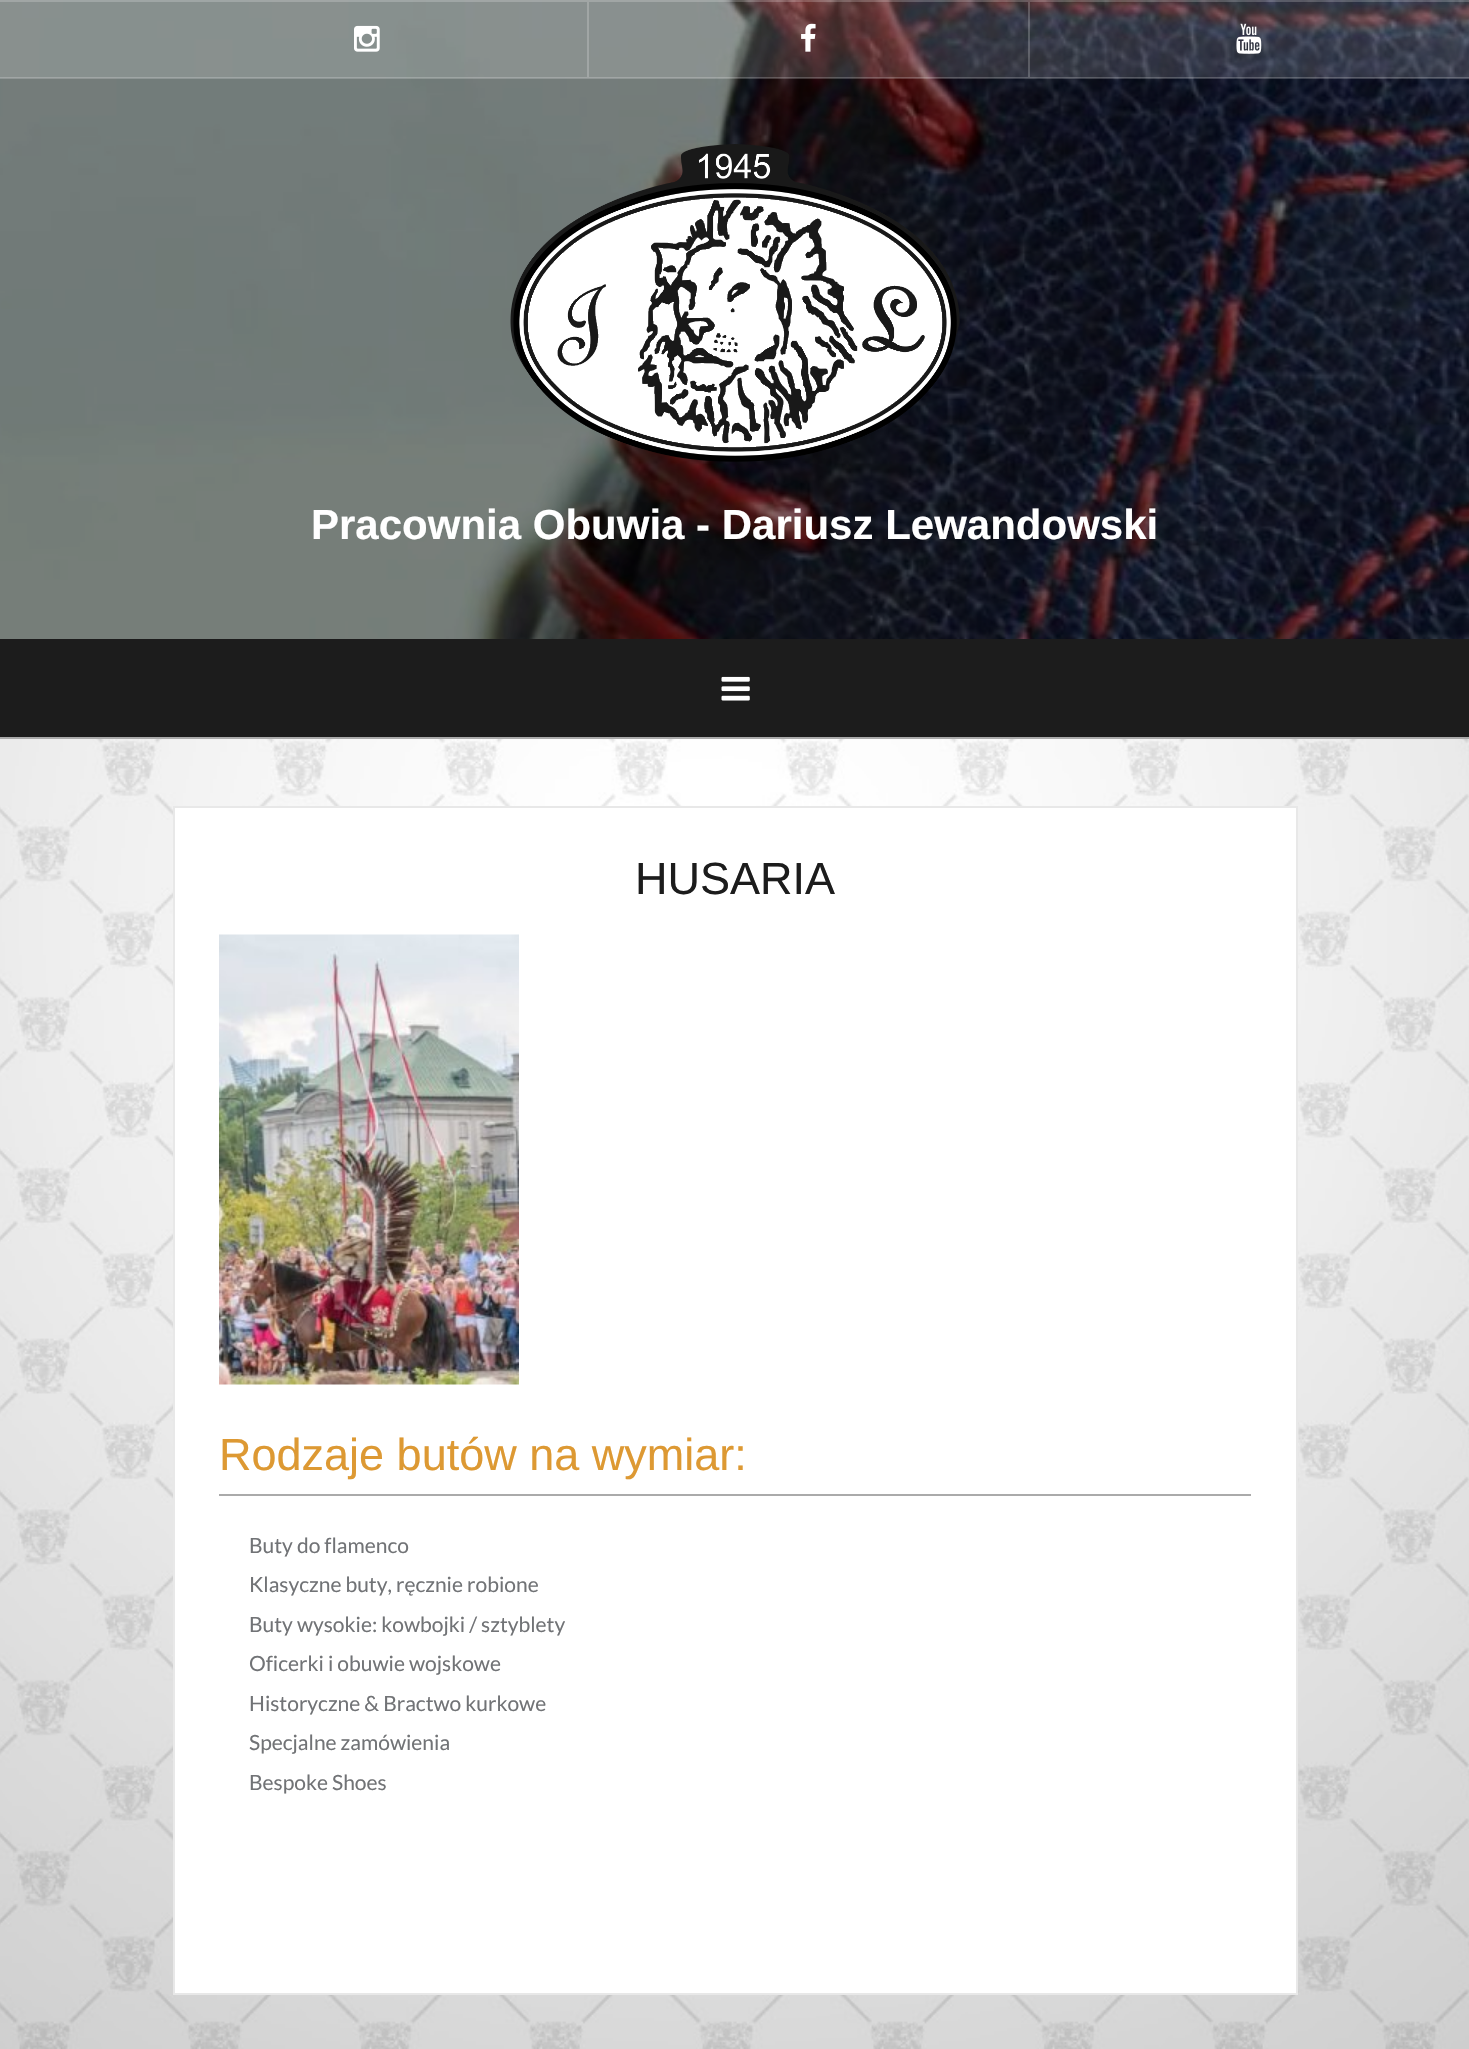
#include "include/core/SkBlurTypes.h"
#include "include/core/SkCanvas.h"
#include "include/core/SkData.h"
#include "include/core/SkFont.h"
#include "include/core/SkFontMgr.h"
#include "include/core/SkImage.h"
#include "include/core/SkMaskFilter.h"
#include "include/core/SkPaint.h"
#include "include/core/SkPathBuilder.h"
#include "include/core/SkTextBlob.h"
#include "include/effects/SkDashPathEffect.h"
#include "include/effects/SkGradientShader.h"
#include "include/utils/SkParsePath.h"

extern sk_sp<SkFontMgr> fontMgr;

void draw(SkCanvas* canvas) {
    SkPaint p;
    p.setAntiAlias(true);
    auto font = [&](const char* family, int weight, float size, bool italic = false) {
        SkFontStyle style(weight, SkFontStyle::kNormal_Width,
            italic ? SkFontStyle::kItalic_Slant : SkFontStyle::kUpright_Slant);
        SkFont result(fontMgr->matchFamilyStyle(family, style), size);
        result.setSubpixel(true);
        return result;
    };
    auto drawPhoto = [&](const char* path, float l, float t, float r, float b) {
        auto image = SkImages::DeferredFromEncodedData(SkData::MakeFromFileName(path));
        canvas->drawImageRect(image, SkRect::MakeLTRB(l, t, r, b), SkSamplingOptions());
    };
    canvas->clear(0xFFFFFFFF);
    drawPhoto("media/1.png", 0, 739, 1469, 2049);
    drawPhoto("media/2.png", 0, 0, 1469, 639);
    {
        const struct { float l, t, r, b; SkColor color; } items[] = {
            {0, 737, 1469, 739, 0xFFAAAAAA},
            {0, 0, 1469, 78, 0x26FFFFFF},
            {0, 0, 1469, 2, 0x33FFFFFF},
            {0, 77, 1469, 79, 0x33FFFFFF},
            {587, 2, 589, 77, 0xFFA1A6A5},
        };
        for (auto [l, t, r, b, color] : items) {
            p.setColor(color);
            canvas->drawRect(SkRect::MakeLTRB(l, t, r, b), p);
        }
    }
    drawPhoto("media/3.png", 354, 25, 380, 52);
    p.setColor(0x33FFFFFF);
    canvas->drawRect(SkRect::MakeLTRB(1028, 2, 1030, 77), p);
    drawPhoto("media/4.png", 801, 23, 816, 52);
    drawPhoto("media/5.png", 1236, 23, 1262, 54);
    drawPhoto("media/6.png", 510, 144, 960, 462);
    auto font1 = font("Liberation Sans", 700, 42);
    p.setColor(0xFFFFFFFF);
    canvas->drawString("Pracownia Obuwia - Dariusz Lewandowski", 311, 539, font1, p);
    p.setColor(0xFF1C1C1C);
    canvas->drawRect(SkRect::MakeLTRB(0, 639, 1469, 737), p);
    drawPhoto("media/7.png", 721, 676, 750, 701);
    p.setColor(0xFFFFFFFF);
    canvas->drawRect(SkRect::MakeLTRB(174, 807, 1297, 1994), p);
    p.setStyle(SkPaint::kStroke_Style);
    p.setStrokeWidth(2);
    p.setColor(0xFFE8E8E8);
    canvas->drawRect(SkRect::MakeLTRB(174, 807, 1297, 1994), p);
    auto font2 = font("Liberation Sans", 400, 45);
    p.setStyle(SkPaint::kFill_Style);
    p.setColor(0xFF1C1C1C);
    canvas->drawString("HUSARIA", 635, 894, font2, p);
    drawPhoto("media/8.png", 219, 934, 519, 1385);
    p.setColor(0xFFAAAAAA);
    canvas->drawRect(SkRect::MakeLTRB(219, 1494, 1251, 1496), p);
    p.setColor(0xFFDD9933);
    canvas->drawString("Rodzaje butów na wymiar:", 219, 1470, font2, p);
    auto font3 = font("Lato", 400, 21);
    p.setColor(0xFF717376);
    {
        const struct { const char* s; float x, y; } items[] = {
            {"Buty do flamenco", 249, 1553},
            {"Klasyczne buty, ręcznie robione", 249, 1592},
            {"Buty wysokie: kowbojki / sztyblety", 249, 1632},
            {"Oficerki i obuwie wojskowe", 249, 1671},
            {"Historyczne & Bractwo kurkowe", 249, 1711},
            {"Specjalne zamówienia", 249, 1750},
            {"Bespoke Shoes", 249, 1790},
        };
        for (auto [s, x, y] : items) {
            canvas->drawString(s, x, y, font3, p);
        }
    }
}
